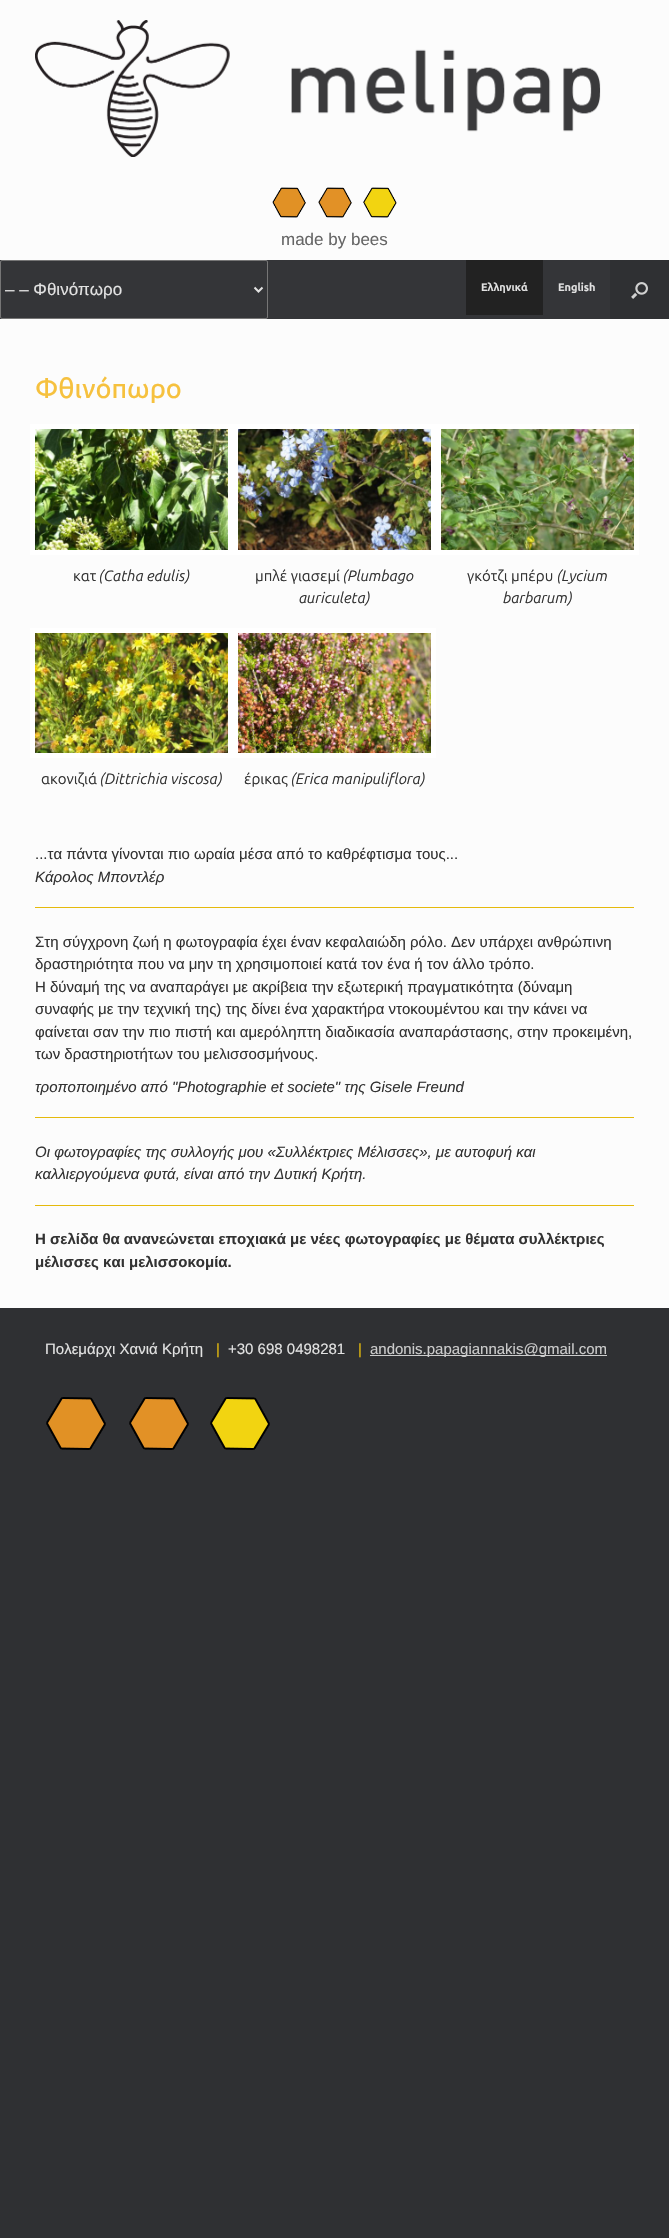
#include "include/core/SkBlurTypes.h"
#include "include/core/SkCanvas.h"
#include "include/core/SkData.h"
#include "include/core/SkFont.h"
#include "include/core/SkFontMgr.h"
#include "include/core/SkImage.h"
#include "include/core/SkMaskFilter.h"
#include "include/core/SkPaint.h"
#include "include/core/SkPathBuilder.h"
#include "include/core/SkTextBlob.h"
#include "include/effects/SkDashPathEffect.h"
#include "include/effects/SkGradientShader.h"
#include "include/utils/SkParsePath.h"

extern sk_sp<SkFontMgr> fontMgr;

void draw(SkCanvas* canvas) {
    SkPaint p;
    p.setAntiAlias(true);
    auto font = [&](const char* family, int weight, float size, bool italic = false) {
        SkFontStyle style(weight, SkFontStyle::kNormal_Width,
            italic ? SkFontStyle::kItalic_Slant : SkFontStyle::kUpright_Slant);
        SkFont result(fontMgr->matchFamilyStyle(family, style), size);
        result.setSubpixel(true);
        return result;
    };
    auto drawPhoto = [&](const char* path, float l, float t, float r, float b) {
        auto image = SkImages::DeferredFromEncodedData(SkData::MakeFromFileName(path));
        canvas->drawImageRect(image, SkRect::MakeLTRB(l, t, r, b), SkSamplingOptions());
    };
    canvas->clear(0xFF2F3033);
    p.setColor(0xFFFCFCFC);
    canvas->drawRect(SkRect::MakeLTRB(0, 0, 669, 260), p);
    drawPhoto("media/1.png", 35, 20, 601, 157);
    drawPhoto("media/2.png", 272, 187, 397, 218);
    auto font1 = font("Liberation Sans", 400, 17);
    p.setColor(0xFF666666);
    canvas->drawString("made by bees", 281, 245, font1, p);
    p.setColor(0xFF343538);
    canvas->drawRect(SkRect::MakeLTRB(0, 260, 610, 319), p);
    p.setStyle(SkPaint::kStroke_Style);
    p.setStrokeWidth(1);
    p.setColor(0xFF767676);
    canvas->drawRoundRect(SkRect::MakeLTRB(0.5f, 260.5f, 267.5f, 318.5f), 1.5f, 1.5f, p);
    p.setStrokeWidth(2);
    p.setColor(0xFFE2E2E2);
    canvas->drawPath(SkPathBuilder().moveTo(254.5f, 287.5f).lineTo(258.5f, 291.5f).lineTo(262.5f, 287.5f).detach(), p);
    p.setStyle(SkPaint::kFill_Style);
    canvas->drawString("– – Φθινόπωρο", 5, 295, font1, p);
    p.setColor(0xFF222222);
    canvas->drawRect(SkRect::MakeLTRB(466, 260, 543, 315), p);
    auto font2 = font("Ubuntu", 700, 11);
    p.setColor(0xFFE2E2E2);
    canvas->drawString("Ελληνικά", 481, 291, font2, p);
    canvas->drawString("English", 558, 291, font2, p);
    drawPhoto("media/3.png", 631, 282, 648, 299);
    p.setColor(0xFFFCFCFC);
    canvas->drawRect(SkRect::MakeLTRB(0, 319, 669, 1308), p);
    auto font3 = font("Ubuntu", 500, 27);
    p.setColor(0xFFF6C13E);
    canvas->drawString("Φθινόπωρο", 35, 398, font3, p);
    p.setColor(0xFFFFFFFF);
    canvas->drawRect(SkRect::MakeLTRB(30, 424, 639, 555), p);
    drawPhoto("media/4.png", 35, 429, 228, 550);
    auto font4 = font("Ubuntu", 400, 15);
    p.setColor(0xFF333333);
    canvas->drawString("κατ", 73, 581, font4, p);
    auto font5 = font("Ubuntu", 400, 15, true);
    canvas->drawString("(Catha edulis)", 99, 581, font5, p);
    drawPhoto("media/5.png", 238, 429, 431, 550);
    canvas->drawString("μπλέ γιασεμί", 255, 581, font4, p);
    canvas->drawString("(Plumbago", 343, 581, font5, p);
    canvas->drawString("auriculeta)", 299, 603, font5, p);
    drawPhoto("media/6.png", 441, 429, 634, 550);
    canvas->drawString("γκότζι μπέρυ", 467, 581, font4, p);
    canvas->drawString("(Lycium", 557, 581, font5, p);
    canvas->drawString("barbarum)", 503, 603, font5, p);
    p.setColor(0xFFFFFFFF);
    canvas->drawRect(SkRect::MakeLTRB(30, 628, 436, 758), p);
    drawPhoto("media/7.png", 35, 633, 228, 753);
    p.setColor(0xFF333333);
    canvas->drawString("ακονιζιά", 41, 784, font4, p);
    canvas->drawString("(Dittrichia viscosa)", 100, 784, font5, p);
    drawPhoto("media/8.png", 238, 633, 431, 753);
    canvas->drawString("έρικας", 244, 784, font4, p);
    canvas->drawString("(Erica manipuliflora)", 291, 784, font5, p);
    p.setColor(0xFFE5BA0C);
    canvas->drawRect(SkRect::MakeLTRB(35, 907, 634, 908), p);
    auto font6 = font("Liberation Sans", 400, 15);
    p.setColor(0xFF333333);
    canvas->drawString("...τα πάντα γίνονται πιο ωραία μέσα από το καθρέφτισμα τους...", 35, 859, font6, p);
    auto font7 = font("Liberation Sans", 400, 15, true);
    canvas->drawString("Κάρολος Μποντλέρ", 35, 882, font7, p);
    p.setColor(0xFFE5BA0C);
    canvas->drawRect(SkRect::MakeLTRB(35, 1117, 634, 1118), p);
    p.setColor(0xFF333333);
    {
        const struct { const char* s; float x, y; } items[] = {
            {"Στη σύγχρονη ζωή η φωτογραφία έχει έναν κεφαλαιώδη ρόλο. Δεν υπάρχει ανθρώπινη", 35, 947},
            {"δραστηριότητα που να μην τη χρησιμοποιεί κατά τον ένα ή τον άλλο τρόπο.", 35, 969},
            {"Η δύναμή της να αναπαράγει με ακρίβεια την εξωτερική πραγματικότητα (δύναμη", 35, 992},
            {"συναφής με την τεχνική της) της δίνει ένα χαρακτήρα ντοκουμέντου και την κάνει να", 35, 1014},
            {"φαίνεται σαν την πιο πιστή και αμερόληπτη διαδικασία αναπαράστασης, στην προκειμένη,", 35, 1037},
            {"των δραστηριοτήτων του μελισσοσμήνους.", 35, 1059},
        };
        for (auto [s, x, y] : items) {
            canvas->drawString(s, x, y, font6, p);
        }
    }
    canvas->drawString("τροποποιημένο από \"Photographie et societe\" της Gisele Freund", 35, 1092, font7, p);
    p.setColor(0xFFE5BA0C);
    canvas->drawRect(SkRect::MakeLTRB(35, 1205, 634, 1206), p);
    p.setColor(0xFF333333);
    canvas->drawString("Οι φωτογραφίες της συλλογής μου «Συλλέκτριες Μέλισσες», με αυτοφυή και", 35, 1157, font7, p);
    canvas->drawString("καλλιεργούμενα φυτά, είναι από την Δυτική Κρήτη.", 35, 1179, font7, p);
    auto font8 = font("Liberation Sans", 700, 15);
    canvas->drawString("Η σελίδα θα ανανεώνεται εποχιακά με νέες φωτογραφίες με θέματα συλλέκτριες", 35, 1244, font8, p);
    canvas->drawString("μέλισσες και μελισσοκομία.", 35, 1267, font8, p);
    p.setColor(0xFFE2E2E2);
    canvas->drawString("Πολεμάρχι Χανιά Κρήτη", 45, 1354, font6, p);
    p.setColor(0xFFE5BA0C);
    canvas->drawString("|", 216, 1354, font6, p);
    p.setColor(0xFFE2E2E2);
    canvas->drawString("+30 698 0498281", 228, 1354, font6, p);
    p.setColor(0xFFE5BA0C);
    canvas->drawString("|", 358, 1354, font6, p);
    p.setColor(0xFFCCCCCC);
    canvas->drawRect(SkRect::MakeLTRB(370, 1355, 607, 1356), p);
    canvas->drawString("andonis.papagiannakis@gmail.com", 370, 1354, font6, p);
    drawPhoto("media/9.png", 46, 1397, 270, 1450);
}
